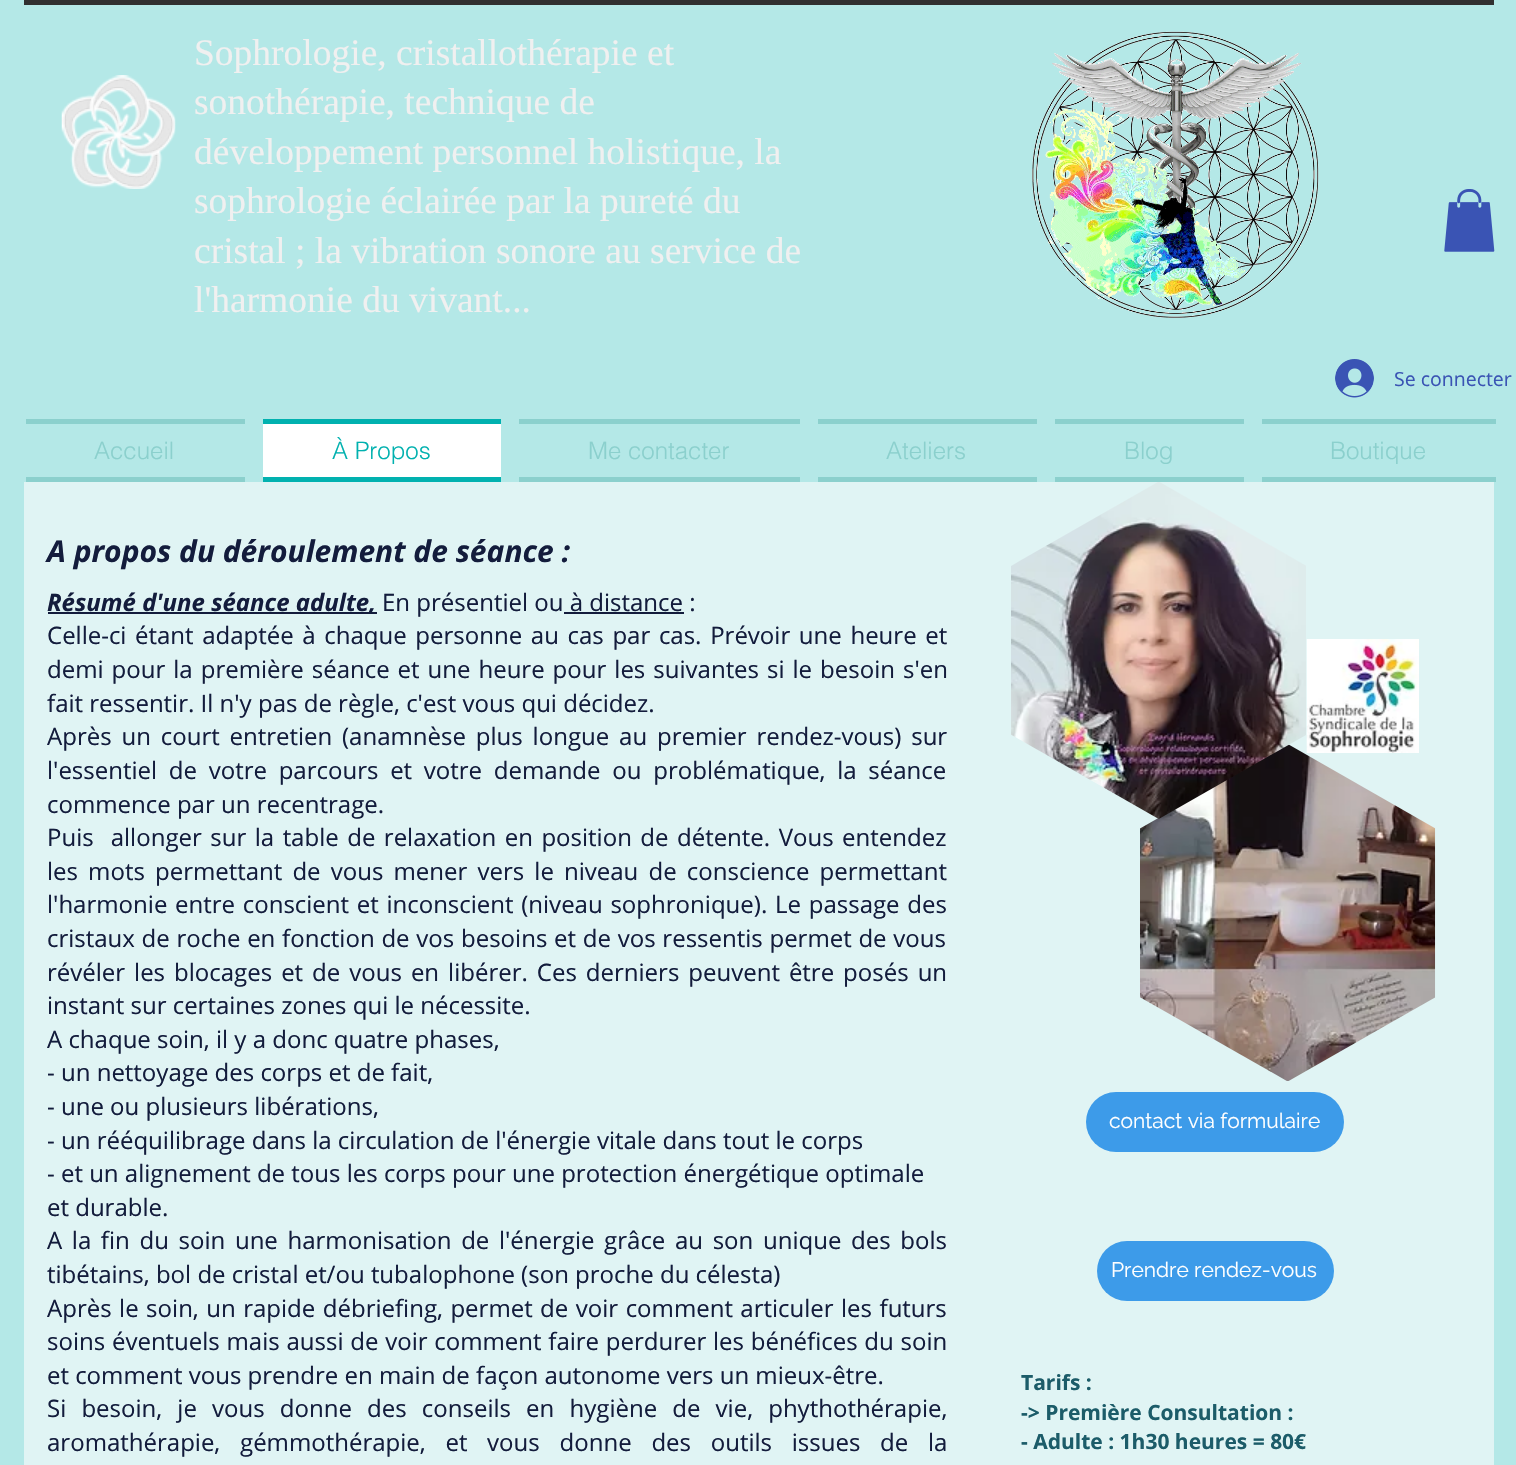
#include "include/core/SkBlurTypes.h"
#include "include/core/SkCanvas.h"
#include "include/core/SkData.h"
#include "include/core/SkFont.h"
#include "include/core/SkFontMgr.h"
#include "include/core/SkImage.h"
#include "include/core/SkMaskFilter.h"
#include "include/core/SkPaint.h"
#include "include/core/SkPathBuilder.h"
#include "include/core/SkTextBlob.h"
#include "include/effects/SkDashPathEffect.h"
#include "include/effects/SkGradientShader.h"
#include "include/utils/SkParsePath.h"

extern sk_sp<SkFontMgr> fontMgr;

void draw(SkCanvas* canvas) {
    SkPaint p;
    p.setAntiAlias(true);
    auto font = [&](const char* family, int weight, float size, bool italic = false) {
        SkFontStyle style(weight, SkFontStyle::kNormal_Width,
            italic ? SkFontStyle::kItalic_Slant : SkFontStyle::kUpright_Slant);
        SkFont result(fontMgr->matchFamilyStyle(family, style), size);
        result.setSubpixel(true);
        return result;
    };
    auto drawTracked = [&](const char* s, float x, float y, const SkFont& font, const SkPaint& ink, float letter, float word) {
        std::vector<SkGlyphID> glyphs(font.countText(s, strlen(s), SkTextEncoding::kUTF8));
        std::vector<float> xs(glyphs.size());
        font.textToGlyphs(s, strlen(s), SkTextEncoding::kUTF8, glyphs);
        font.getXPos(glyphs, xs, x);
        float extra = 0;
        for (size_t i = 0; i < glyphs.size(); i++) {
            xs[i] += extra;
            extra += letter + word * (glyphs[i] == font.unicharToGlyph(' '));
        }
        canvas->drawTextBlob(SkTextBlob::MakeFromPosHGlyphs(glyphs, xs, y, font), 0, 0, ink);
    };
    auto drawPhoto = [&](const char* path, float l, float t, float r, float b) {
        auto image = SkImages::DeferredFromEncodedData(SkData::MakeFromFileName(path));
        canvas->drawImageRect(image, SkRect::MakeLTRB(l, t, r, b), SkSamplingOptions());
    };
    canvas->clear(0xFFB4E8E7);
    p.setColor(0xFF303030);
    canvas->drawRect(SkRect::MakeLTRB(24, 0, 1494, 5), p);
    drawPhoto("media/1.png", 61, 75, 176, 189);
    auto font1 = font("Liberation Serif", 400, 37.5f);
    p.setColor(0xFFF0F0F0);
    {
        const struct { const char* s; float x, y; } items[] = {
            {"Sophrologie, cristallothérapie et", 194, 65},
            {"sonothérapie, technique de", 194, 114},
            {"développement personnel holistique, la", 194, 164},
            {"sophrologie éclairée par la pureté du", 194, 213},
            {"cristal ; la vibration sonore au service de", 194, 263},
            {"l'harmonie du vivant...", 194, 312},
        };
        for (auto [s, x, y] : items) {
            canvas->drawString(s, x, y, font1, p);
        }
    }
    drawPhoto("media/2.png", 1032, 31, 1319, 318);
    drawPhoto("media/3.png", 1444, 189, 1495, 252);
    drawPhoto("media/4.png", 1335, 359, 1374, 398);
    auto font2 = font("Open Sans", 400, 19.5f);
    p.setColor(0xFF3A54B4);
    canvas->drawString("Se connecter", 1394, 386, font2, p);
    p.setColor(0xFF8BD0CD);
    canvas->drawRect(SkRect::MakeLTRB(26, 419, 245, 424), p);
    canvas->drawRect(SkRect::MakeLTRB(26, 477, 245, 482), p);
    auto font3 = font("helvetica", 300, 24);
    canvas->drawString("Accueil", 94, 459, font3, p);
    {
        const struct { float l, t, r, b; SkColor color; } items[] = {
            {263, 424, 501, 477, 0xFFFFFFFF},
            {263, 419, 501, 424, 0xFF01B1AF},
            {263, 477, 501, 482, 0xFF01B1AF},
        };
        for (auto [l, t, r, b, color] : items) {
            p.setColor(color);
            canvas->drawRect(SkRect::MakeLTRB(l, t, r, b), p);
        }
    }
    canvas->drawString("À Propos", 332, 459, font3, p);
    p.setColor(0xFF8BD0CD);
    canvas->drawRect(SkRect::MakeLTRB(519, 419, 800, 424), p);
    canvas->drawRect(SkRect::MakeLTRB(519, 477, 800, 482), p);
    canvas->drawString("Me contacter", 588, 459, font3, p);
    canvas->drawRect(SkRect::MakeLTRB(818, 419, 1037, 424), p);
    canvas->drawRect(SkRect::MakeLTRB(818, 477, 1037, 482), p);
    canvas->drawString("Ateliers", 886, 459, font3, p);
    canvas->drawRect(SkRect::MakeLTRB(1055, 419, 1244, 424), p);
    canvas->drawRect(SkRect::MakeLTRB(1055, 477, 1244, 482), p);
    canvas->drawString("Blog", 1124, 459, font3, p);
    canvas->drawRect(SkRect::MakeLTRB(1262, 419, 1496, 424), p);
    canvas->drawRect(SkRect::MakeLTRB(1262, 477, 1496, 482), p);
    canvas->drawString("Boutique", 1330, 459, font3, p);
    p.setColor(0xFFE0F4F4);
    canvas->drawRect(SkRect::MakeLTRB(24, 482, 1494, 1465), p);
    auto font4 = font("Open Sans", 700, 30, true);
    p.setColor(0xFF131C3C);
    canvas->drawString("A propos du déroulement de séance :", 47, 562, font4, p);
    canvas->drawRect(SkRect::MakeLTRB(48, 612, 377, 614), p);
    auto font5 = font("Open Sans", 700, 24, true);
    canvas->drawString("Résumé d'une séance adulte,", 47, 611, font5, p);
    auto font6 = font("Open Sans", 400, 24);
    canvas->drawString("En présentiel ou à distance :", 382, 611, font6, p);
    canvas->drawRect(SkRect::MakeLTRB(564, 612, 684, 614), p);
    drawTracked("Celle-ci étant adaptée à chaque personne au cas par cas. Prévoir une heure et", 47, 644, font6, p, 0, 2.4f);
    drawTracked("demi pour la première séance et une heure pour les suivantes si le besoin s'en", 47, 678, font6, p, 0, 1.75f);
    canvas->drawString("fait ressentir. Il n'y pas de règle, c'est vous qui décidez.", 47, 712, font6, p);
    drawTracked("Après un court entretien (anamnèse plus longue au premier rendez-vous) sur", 47, 745, font6, p, 0, 3.6f);
    drawTracked("l'essentiel de votre parcours et votre demande ou problématique, la séance", 47, 779, font6, p, 0, 5.5f);
    canvas->drawString("commence par un recentrage.", 47, 813, font6, p);
    drawTracked("Puis  allonger sur la table de relaxation en position de détente. Vous entendez", 47, 846, font6, p, 0, 2.25f);
    drawTracked("les mots permettant de vous mener vers le niveau de conscience permettant", 47, 880, font6, p, 0, 3.9f);
    drawTracked("l'harmonie entre conscient et inconscient (niveau sophronique). Le passage des", 47, 913, font6, p, 0, 1.5f);
    drawTracked("cristaux de roche en fonction de vos besoins et de vos ressentis permet de vous", 47, 947, font6, p, 0, 0.5f);
    drawTracked("révéler les blocages et de vous en libérer. Ces derniers peuvent être posés un", 47, 981, font6, p, 0, 2.75f);
    {
        const struct { const char* s; float x, y; } items[] = {
            {"instant sur certaines zones qui le nécessite.", 47, 1014},
            {"A chaque soin, il y a donc quatre phases,", 47, 1048},
            {"- un nettoyage des corps et de fait,", 47, 1081},
            {"- une ou plusieurs libérations,", 47, 1115},
            {"- un rééquilibrage dans la circulation de l'énergie vitale dans tout le corps", 47, 1149},
            {"- et un alignement de tous les corps pour une protection énergétique optimale", 47, 1182},
            {"et durable.", 47, 1216},
        };
        for (auto [s, x, y] : items) {
            canvas->drawString(s, x, y, font6, p);
        }
    }
    drawTracked("A la fin du soin une harmonisation de l'énergie grâce au son unique des bols", 47, 1249, font6, p, 0, 3.4f);
    canvas->drawString("tibétains, bol de cristal et/ou tubalophone (son proche du célesta)", 47, 1283, font6, p);
    drawTracked("Après le soin, un rapide débriefing, permet de voir comment articuler les futurs", 47, 1317, font6, p, 0, 1.25f);
    drawTracked("soins éventuels mais aussi de voir comment faire perdurer les bénéfices du soin", 47, 1350, font6, p, 0, 0.5f);
    canvas->drawString("et comment vous prendre en main de façon autonome vers un mieux-être.", 47, 1384, font6, p);
    drawTracked("Si besoin, je vous donne des conseils en hygiène de vie, phythothérapie,", 47, 1417, font6, p, 0, 8.9f);
    drawTracked("aromathérapie, gémmothérapie, et vous donne des outils issues de la", 47, 1451, font6, p, 0, 13.5f);
    drawPhoto("media/6.png", 1306, 639, 1419, 753);
    drawPhoto("media/7.png", 1140, 744, 1436, 1081);
    drawPhoto("media/5.png", 1011, 482, 1306, 819);
    p.setColor(0xFF3D9BE9);
    canvas->drawRoundRect(SkRect::MakeLTRB(1086, 1092, 1344, 1152), 30, 30, p);
    auto font7 = font("Raleway", 400, 21);
    p.setColor(0xFFFFFFFF);
    canvas->drawString("contact via formulaire", 1109, 1128, font7, p);
    p.setColor(0xFF3D9BE9);
    canvas->drawRoundRect(SkRect::MakeLTRB(1097, 1241, 1334, 1301), 30, 30, p);
    p.setColor(0xFFFFFFFF);
    canvas->drawString("Prendre rendez-vous", 1111, 1277, font7, p);
    auto font8 = font("Open Sans", 700, 21);
    p.setColor(0xFF1C5C69);
    {
        const struct { const char* s; float x, y; } items[] = {
            {"Tarifs :", 1021, 1390},
            {"-> Première Consultation :", 1021, 1420},
            {"- Adulte : 1h30 heures = 80€", 1021, 1449},
        };
        for (auto [s, x, y] : items) {
            canvas->drawString(s, x, y, font8, p);
        }
    }
}
